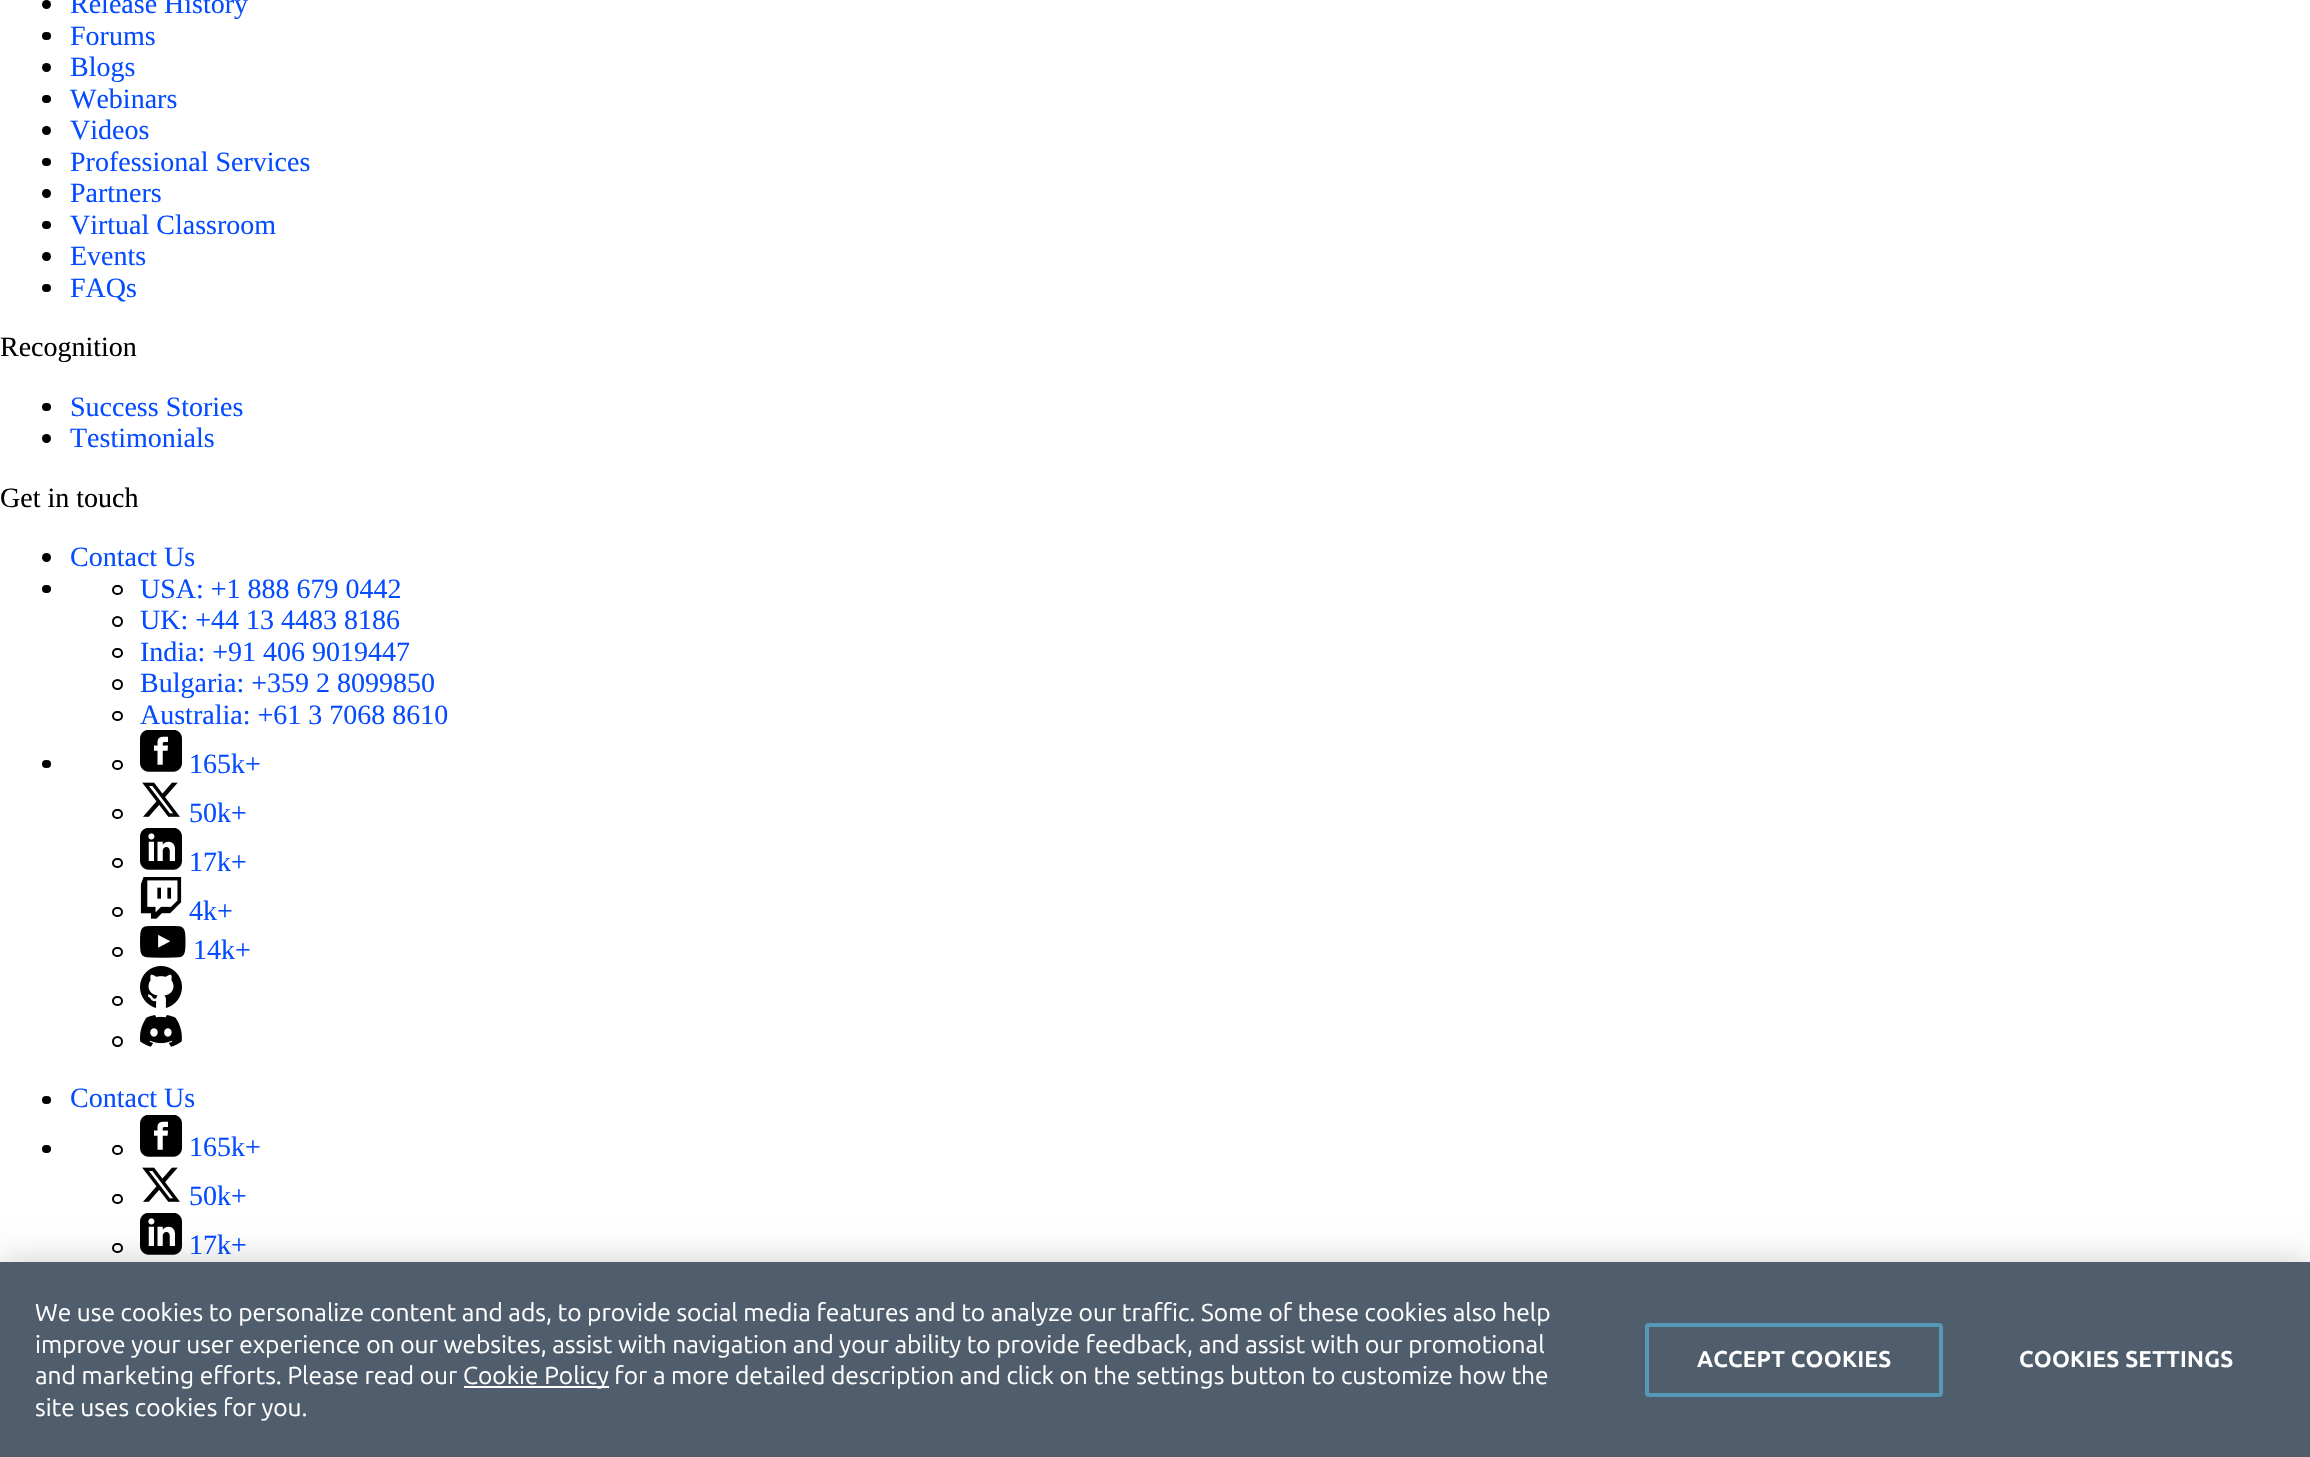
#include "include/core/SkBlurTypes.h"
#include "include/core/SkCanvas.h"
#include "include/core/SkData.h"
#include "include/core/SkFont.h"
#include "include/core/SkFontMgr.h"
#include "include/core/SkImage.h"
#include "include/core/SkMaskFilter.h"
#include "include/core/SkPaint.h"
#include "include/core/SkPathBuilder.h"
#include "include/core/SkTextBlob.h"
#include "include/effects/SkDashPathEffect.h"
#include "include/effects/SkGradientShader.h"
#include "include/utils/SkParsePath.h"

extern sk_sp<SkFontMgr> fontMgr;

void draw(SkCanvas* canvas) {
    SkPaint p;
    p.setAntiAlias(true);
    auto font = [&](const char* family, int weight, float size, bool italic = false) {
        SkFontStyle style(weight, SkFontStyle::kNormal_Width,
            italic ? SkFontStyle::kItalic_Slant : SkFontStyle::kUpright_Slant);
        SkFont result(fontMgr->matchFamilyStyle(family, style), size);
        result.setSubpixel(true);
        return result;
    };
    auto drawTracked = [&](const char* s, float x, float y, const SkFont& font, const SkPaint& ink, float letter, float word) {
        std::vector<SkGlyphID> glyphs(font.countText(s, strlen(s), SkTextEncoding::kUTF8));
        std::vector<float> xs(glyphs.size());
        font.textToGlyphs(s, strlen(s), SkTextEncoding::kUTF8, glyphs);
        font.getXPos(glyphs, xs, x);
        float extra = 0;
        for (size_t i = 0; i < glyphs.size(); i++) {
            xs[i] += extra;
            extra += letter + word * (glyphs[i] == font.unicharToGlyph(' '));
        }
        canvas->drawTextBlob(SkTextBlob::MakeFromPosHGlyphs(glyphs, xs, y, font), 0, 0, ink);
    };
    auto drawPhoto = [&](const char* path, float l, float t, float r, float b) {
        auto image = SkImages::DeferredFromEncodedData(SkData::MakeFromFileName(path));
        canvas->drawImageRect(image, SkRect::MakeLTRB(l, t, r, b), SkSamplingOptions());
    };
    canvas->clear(0xFFFFFFFF);
    p.setColor(0xFF000000);
    canvas->drawCircle(46.5f, 4.5f, 4.5f, p);
    auto font1 = font("Liberation Serif", 400, 28);
    p.setColor(0xFF054BFF);
    canvas->drawString("Release History", 70, 13, font1, p);
    p.setColor(0xFF000000);
    canvas->drawRoundRect(SkRect::MakeLTRB(42, 32, 51, 40), 4, 4, p);
    p.setColor(0xFF054BFF);
    canvas->drawString("Forums", 70, 45, font1, p);
    p.setColor(0xFF000000);
    canvas->drawCircle(46.5f, 67.5f, 4.5f, p);
    p.setColor(0xFF054BFF);
    canvas->drawString("Blogs", 70, 76, font1, p);
    p.setColor(0xFF000000);
    canvas->drawRoundRect(SkRect::MakeLTRB(42, 95, 51, 103), 4, 4, p);
    p.setColor(0xFF054BFF);
    canvas->drawString("Webinars", 70, 108, font1, p);
    p.setColor(0xFF000000);
    canvas->drawCircle(46.5f, 130.5f, 4.5f, p);
    p.setColor(0xFF054BFF);
    canvas->drawString("Videos", 70, 139, font1, p);
    p.setColor(0xFF000000);
    canvas->drawRoundRect(SkRect::MakeLTRB(42, 158, 51, 166), 4, 4, p);
    p.setColor(0xFF054BFF);
    canvas->drawString("Professional Services", 70, 171, font1, p);
    p.setColor(0xFF000000);
    canvas->drawCircle(46.5f, 193.5f, 4.5f, p);
    p.setColor(0xFF054BFF);
    canvas->drawString("Partners", 70, 202, font1, p);
    p.setColor(0xFF000000);
    canvas->drawRoundRect(SkRect::MakeLTRB(42, 221, 51, 229), 4, 4, p);
    p.setColor(0xFF054BFF);
    canvas->drawString("Virtual Classroom", 70, 234, font1, p);
    p.setColor(0xFF000000);
    canvas->drawCircle(46.5f, 256.5f, 4.5f, p);
    p.setColor(0xFF054BFF);
    canvas->drawString("Events", 70, 265, font1, p);
    p.setColor(0xFF000000);
    canvas->drawRoundRect(SkRect::MakeLTRB(42, 284, 51, 292), 4, 4, p);
    p.setColor(0xFF054BFF);
    canvas->drawString("FAQs", 70, 297, font1, p);
    p.setColor(0xFF000000);
    canvas->drawString("Recognition", 0, 356, font1, p);
    canvas->drawRoundRect(SkRect::MakeLTRB(42, 403, 51, 411), 4, 4, p);
    p.setColor(0xFF054BFF);
    canvas->drawString("Success Stories", 70, 416, font1, p);
    p.setColor(0xFF000000);
    canvas->drawCircle(46.5f, 438.5f, 4.5f, p);
    p.setColor(0xFF054BFF);
    canvas->drawString("Testimonials", 70, 447, font1, p);
    p.setColor(0xFF000000);
    canvas->drawString("Get in touch", 0, 507, font1, p);
    canvas->drawCircle(46.5f, 557.5f, 4.5f, p);
    p.setColor(0xFF054BFF);
    canvas->drawString("Contact Us", 70, 566, font1, p);
    p.setColor(0xFF000000);
    canvas->drawRoundRect(SkRect::MakeLTRB(42, 585, 51, 593), 4, 4, p);
    p.setStyle(SkPaint::kStroke_Style);
    p.setStrokeWidth(2);
    canvas->drawRoundRect(SkRect::MakeLTRB(113, 586, 122, 594), 4, 4, p);
    p.setStyle(SkPaint::kFill_Style);
    p.setColor(0xFF054BFF);
    canvas->drawString("USA: +1 888 679 0442", 140, 598, font1, p);
    p.setStyle(SkPaint::kStroke_Style);
    p.setColor(0xFF000000);
    canvas->drawCircle(117.5f, 621.5f, 4.5f, p);
    p.setStyle(SkPaint::kFill_Style);
    p.setColor(0xFF054BFF);
    canvas->drawString("UK: +44 13 4483 8186", 140, 629, font1, p);
    p.setStyle(SkPaint::kStroke_Style);
    p.setColor(0xFF000000);
    canvas->drawRoundRect(SkRect::MakeLTRB(113, 649, 122, 657), 4, 4, p);
    p.setStyle(SkPaint::kFill_Style);
    p.setColor(0xFF054BFF);
    canvas->drawString("India: +91 406 9019447", 140, 661, font1, p);
    p.setStyle(SkPaint::kStroke_Style);
    p.setColor(0xFF000000);
    canvas->drawCircle(117.5f, 684.5f, 4.5f, p);
    p.setStyle(SkPaint::kFill_Style);
    p.setColor(0xFF054BFF);
    canvas->drawString("Bulgaria: +359 2 8099850", 140, 692, font1, p);
    p.setStyle(SkPaint::kStroke_Style);
    p.setColor(0xFF000000);
    canvas->drawRoundRect(SkRect::MakeLTRB(113, 712, 122, 720), 4, 4, p);
    p.setStyle(SkPaint::kFill_Style);
    p.setColor(0xFF054BFF);
    canvas->drawString("Australia: +61 3 7068 8610", 140, 724, font1, p);
    p.setColor(0xFF000000);
    canvas->drawRoundRect(SkRect::MakeLTRB(42, 760, 51, 768), 4, 4, p);
    p.setStyle(SkPaint::kStroke_Style);
    canvas->drawRoundRect(SkRect::MakeLTRB(113, 761, 122, 769), 4, 4, p);
    drawPhoto("media/1.png", 140, 730, 182, 772);
    p.setStyle(SkPaint::kFill_Style);
    p.setColor(0xFF054BFF);
    canvas->drawString("165k+", 189, 773, font1, p);
    p.setStyle(SkPaint::kStroke_Style);
    p.setColor(0xFF000000);
    canvas->drawRoundRect(SkRect::MakeLTRB(113, 810, 122, 818), 4, 4, p);
    drawPhoto("media/2.png", 142, 782, 180, 817);
    p.setStyle(SkPaint::kFill_Style);
    p.setColor(0xFF054BFF);
    canvas->drawString("50k+", 189, 822, font1, p);
    p.setStyle(SkPaint::kStroke_Style);
    p.setColor(0xFF000000);
    canvas->drawRoundRect(SkRect::MakeLTRB(113, 859, 122, 867), 4, 4, p);
    drawPhoto("media/3.png", 140, 828, 182, 870);
    p.setStyle(SkPaint::kFill_Style);
    p.setColor(0xFF054BFF);
    canvas->drawString("17k+", 189, 871, font1, p);
    p.setStyle(SkPaint::kStroke_Style);
    p.setColor(0xFF000000);
    canvas->drawRoundRect(SkRect::MakeLTRB(113, 908, 122, 916), 4, 4, p);
    drawPhoto("media/4.png", 140, 877, 182, 919);
    p.setStyle(SkPaint::kFill_Style);
    p.setColor(0xFF054BFF);
    canvas->drawString("4k+", 189, 920, font1, p);
    p.setStyle(SkPaint::kStroke_Style);
    p.setColor(0xFF000000);
    canvas->drawRoundRect(SkRect::MakeLTRB(113, 948, 122, 956), 4, 4, p);
    drawPhoto("media/5.png", 140, 926, 186, 958);
    p.setStyle(SkPaint::kFill_Style);
    p.setColor(0xFF054BFF);
    canvas->drawString("14k+", 193, 959, font1, p);
    p.setStyle(SkPaint::kStroke_Style);
    p.setColor(0xFF000000);
    canvas->drawRoundRect(SkRect::MakeLTRB(113, 997, 122, 1005), 4, 4, p);
    drawPhoto("media/6.png", 140, 966, 182, 1008);
    canvas->drawCircle(117.5f, 1041.5f, 4.5f, p);
    drawPhoto("media/7.png", 140, 1015, 182, 1047);
    p.setStyle(SkPaint::kFill_Style);
    canvas->drawRoundRect(SkRect::MakeLTRB(42, 1096, 51, 1104), 4, 4, p);
    p.setColor(0xFF054BFF);
    canvas->drawString("Contact Us", 70, 1107, font1, p);
    p.setColor(0xFF000000);
    canvas->drawRoundRect(SkRect::MakeLTRB(42, 1145, 51, 1153), 4, 4, p);
    p.setStyle(SkPaint::kStroke_Style);
    canvas->drawRoundRect(SkRect::MakeLTRB(113, 1146, 122, 1154), 4, 4, p);
    drawPhoto("media/1.png", 140, 1115, 182, 1157);
    p.setStyle(SkPaint::kFill_Style);
    p.setColor(0xFF054BFF);
    canvas->drawString("165k+", 189, 1156, font1, p);
    p.setStyle(SkPaint::kStroke_Style);
    p.setColor(0xFF000000);
    canvas->drawRoundRect(SkRect::MakeLTRB(113, 1195, 122, 1203), 4, 4, p);
    drawPhoto("media/2.png", 142, 1167, 180, 1202);
    p.setStyle(SkPaint::kFill_Style);
    p.setColor(0xFF054BFF);
    canvas->drawString("50k+", 189, 1205, font1, p);
    p.setStyle(SkPaint::kStroke_Style);
    p.setColor(0xFF000000);
    canvas->drawRoundRect(SkRect::MakeLTRB(113, 1244, 122, 1252), 4, 4, p);
    drawPhoto("media/3.png", 140, 1213, 182, 1255);
    p.setStyle(SkPaint::kFill_Style);
    p.setColor(0xFF054BFF);
    canvas->drawString("17k+", 189, 1254, font1, p);
    p.setColor(0x33000000);
    p.setMaskFilter(SkMaskFilter::MakeBlur(kNormal_SkBlurStyle, 16));
    canvas->drawRect(SkRect::MakeLTRB(0, 1262, 2310, 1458), p);
    p.setMaskFilter(nullptr);
    p.setColor(0xFF4F5D6C);
    canvas->drawRect(SkRect::MakeLTRB(0, 1262, 2310, 1457), p);
    auto font2 = font("Ubuntu", 400, 24.5f);
    p.setColor(0xFFFFFFFF);
    {
        const struct { const char* s; float x, y; } items[] = {
            {"We use cookies to personalize content and ads, to provide social media features and to analyze our traffic. Some of these cookies also help", 35, 1321},
            {"improve your user experience on our websites, assist with navigation and your ability to provide feedback, and assist with our promotional", 35, 1353},
            {"and marketing efforts. Please read our", 35, 1384},
        };
        for (auto [s, x, y] : items) {
            canvas->drawString(s, x, y, font2, p);
        }
    }
    canvas->drawRect(SkRect::MakeLTRB(464, 1386, 609, 1388), p);
    canvas->drawString("Cookie Policy for a more detailed description and click on the settings button to customize how the", 463, 1384, font2, p);
    canvas->drawString("site uses cookies for you.", 35, 1416, font2, p);
    p.setStyle(SkPaint::kStroke_Style);
    p.setStrokeWidth(4);
    p.setColor(0xFF5699B6);
    canvas->drawRoundRect(SkRect::MakeLTRB(1647, 1325, 1941, 1395), 2, 2, p);
    auto font3 = font("Ubuntu", 700, 22.75f);
    p.setStyle(SkPaint::kFill_Style);
    p.setColor(0xFFFFFFFF);
    drawTracked("ACCEPT COOKIES", 1697, 1367, font3, p, 0.25f, 0);
    drawTracked("COOKIES SETTINGS", 2019, 1367, font3, p, 0.25f, 0);
}
